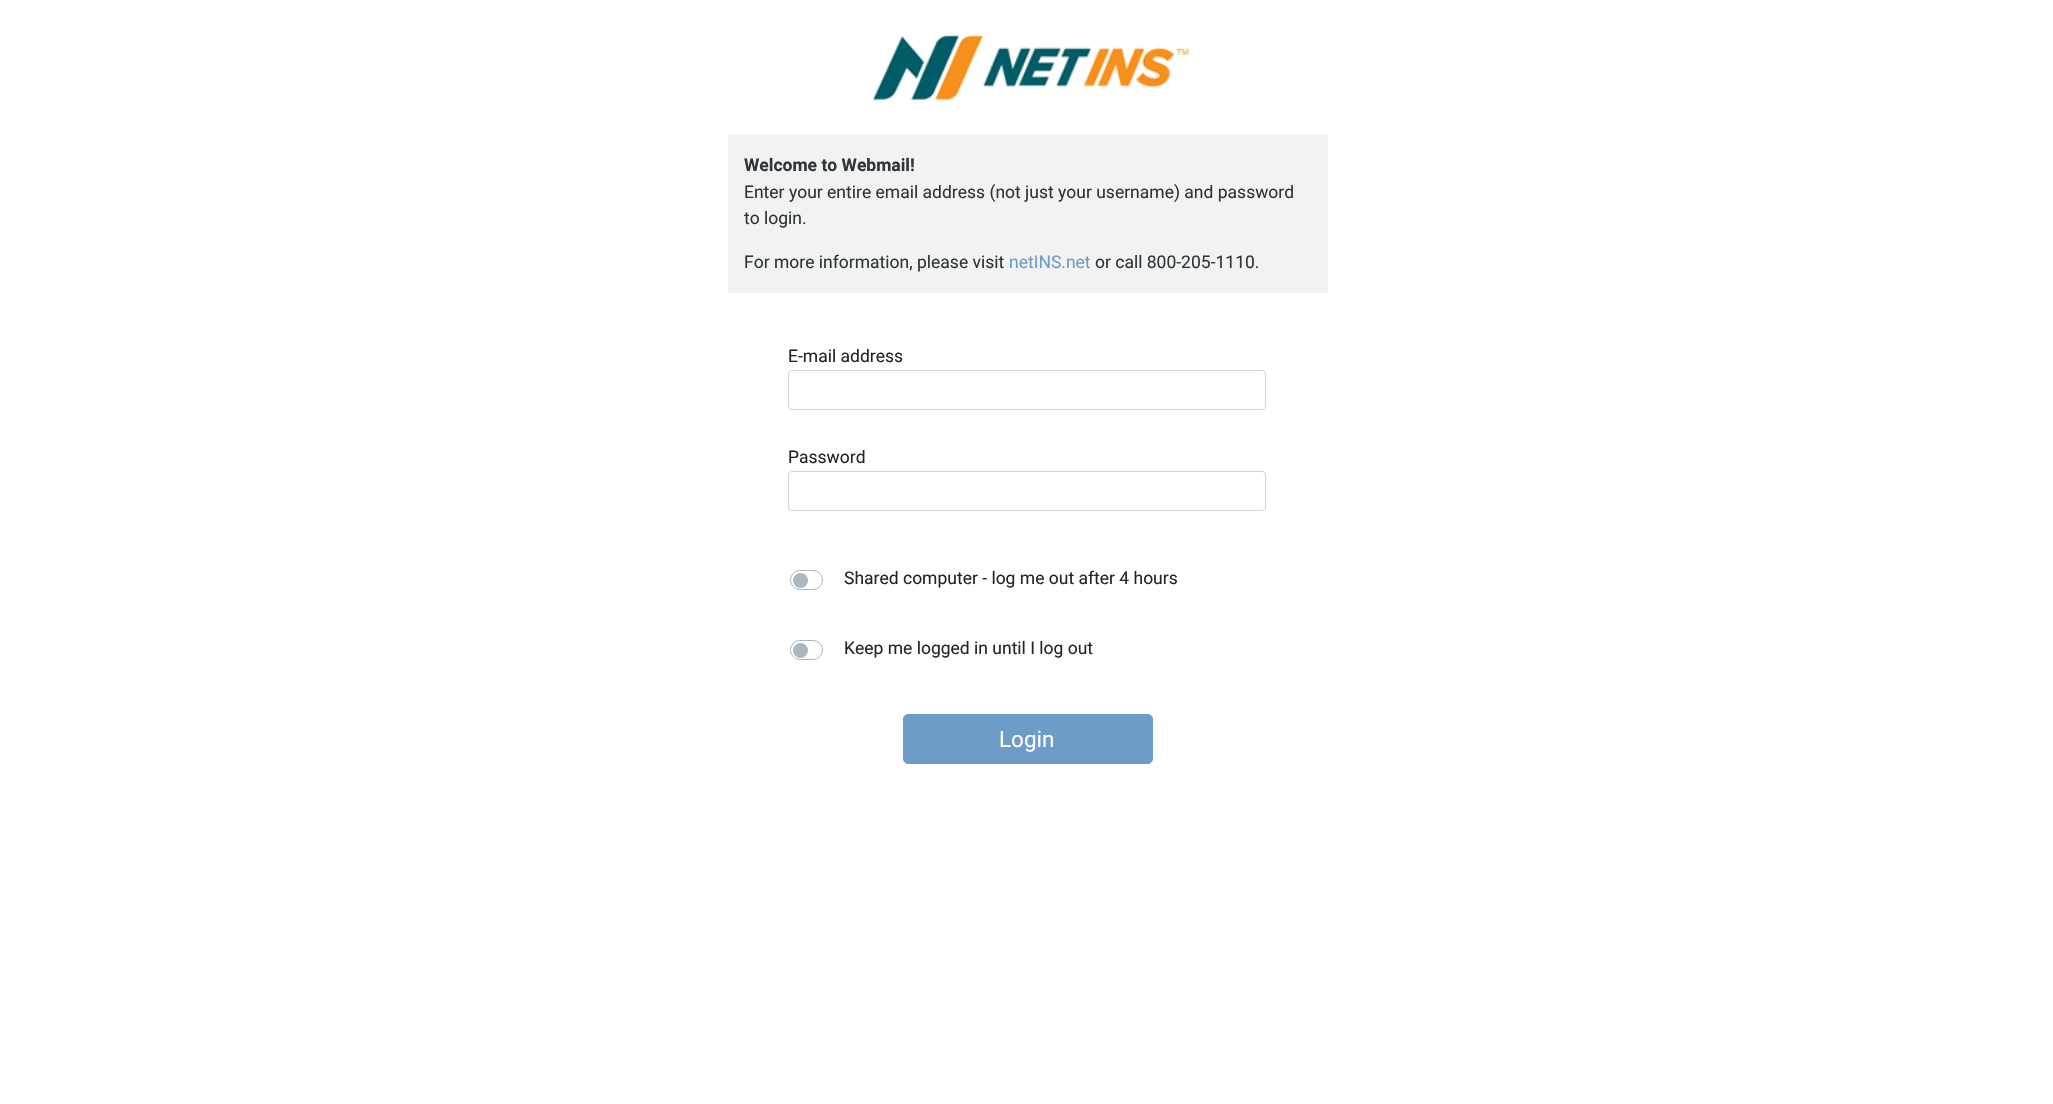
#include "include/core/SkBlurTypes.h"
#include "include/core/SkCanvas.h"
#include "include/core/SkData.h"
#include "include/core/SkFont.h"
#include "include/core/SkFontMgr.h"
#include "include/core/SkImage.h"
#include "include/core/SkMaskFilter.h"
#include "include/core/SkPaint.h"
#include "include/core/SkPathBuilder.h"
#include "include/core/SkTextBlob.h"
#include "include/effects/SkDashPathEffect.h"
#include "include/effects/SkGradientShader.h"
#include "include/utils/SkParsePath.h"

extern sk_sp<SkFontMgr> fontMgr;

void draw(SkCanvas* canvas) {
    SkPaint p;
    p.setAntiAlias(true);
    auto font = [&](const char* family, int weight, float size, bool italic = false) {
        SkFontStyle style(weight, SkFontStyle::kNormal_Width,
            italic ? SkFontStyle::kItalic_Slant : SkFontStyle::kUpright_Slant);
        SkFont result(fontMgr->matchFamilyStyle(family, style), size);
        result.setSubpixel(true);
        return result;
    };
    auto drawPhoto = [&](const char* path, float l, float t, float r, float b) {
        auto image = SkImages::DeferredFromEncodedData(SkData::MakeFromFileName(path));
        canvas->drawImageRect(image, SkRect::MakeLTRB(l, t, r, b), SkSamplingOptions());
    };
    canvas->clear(0xFFFFFFFF);
    drawPhoto("media/1.png", 872, 35, 1189, 101);
    p.setColor(0xFFF2F2F2);
    canvas->drawRect(SkRect::MakeLTRB(728, 135, 1328, 293), p);
    auto font1 = font("Roboto", 700, 17.5f);
    p.setColor(0xFF2C363A);
    canvas->drawString("Welcome to Webmail!", 744, 171, font1, p);
    auto font2 = font("Roboto", 400, 17.5f);
    {
        const struct { const char* s; float x, y; } items[] = {
            {"Enter your entire email address (not just your username) and password", 744, 198},
            {"to login.", 744, 224},
            {"For more information, please visit", 744, 268},
        };
        for (auto [s, x, y] : items) {
            canvas->drawString(s, x, y, font2, p);
        }
    }
    p.setColor(0xFF6D9CC9);
    canvas->drawString("netINS.net", 1009, 268, font2, p);
    p.setColor(0xFF2C363A);
    canvas->drawString("or call 800-205-1110.", 1095, 268, font2, p);
    p.setColor(0xFF212529);
    canvas->drawString("E-mail address", 788, 362, font2, p);
    p.setStyle(SkPaint::kStroke_Style);
    p.setStrokeWidth(1);
    p.setColor(0xFFCED4DA);
    canvas->drawRoundRect(SkRect::MakeLTRB(788.5f, 370.5f, 1265.5f, 409.5f), 3.5f, 3.5f, p);
    p.setStyle(SkPaint::kFill_Style);
    p.setColor(0xFF212529);
    canvas->drawString("Password", 788, 463, font2, p);
    p.setStyle(SkPaint::kStroke_Style);
    p.setColor(0xFFCED4DA);
    canvas->drawRoundRect(SkRect::MakeLTRB(788.5f, 471.5f, 1265.5f, 510.5f), 3.5f, 3.5f, p);
    p.setColor(0xFFADB5BD);
    canvas->drawRoundRect(SkRect::MakeLTRB(790.5f, 570.5f, 822.5f, 589.5f), 9.5f, 9.5f, p);
    p.setStyle(SkPaint::kFill_Style);
    canvas->drawCircle(800.5f, 580.5f, 7.5f, p);
    p.setColor(0xFF212529);
    canvas->drawString("Shared computer - log me out after 4 hours", 844, 584, font2, p);
    p.setStyle(SkPaint::kStroke_Style);
    p.setColor(0xFFADB5BD);
    canvas->drawRoundRect(SkRect::MakeLTRB(790.5f, 640.5f, 822.5f, 659.5f), 9.5f, 9.5f, p);
    p.setStyle(SkPaint::kFill_Style);
    canvas->drawCircle(800.5f, 650.5f, 7.5f, p);
    p.setColor(0xFF212529);
    canvas->drawString("Keep me logged in until I log out", 844, 654, font2, p);
    p.setColor(0xFF6D9CC9);
    canvas->drawRoundRect(SkRect::MakeLTRB(903.5f, 714.5f, 1152.5f, 763.5f), 4.5f, 4.5f, p);
    p.setStyle(SkPaint::kStroke_Style);
    canvas->drawRoundRect(SkRect::MakeLTRB(903.5f, 714.5f, 1152.5f, 763.5f), 4.5f, 4.5f, p);
    auto font3 = font("Roboto", 400, 22.5f);
    p.setStyle(SkPaint::kFill_Style);
    p.setColor(0xFFFFFFFF);
    canvas->drawString("Login", 999, 747, font3, p);
}
